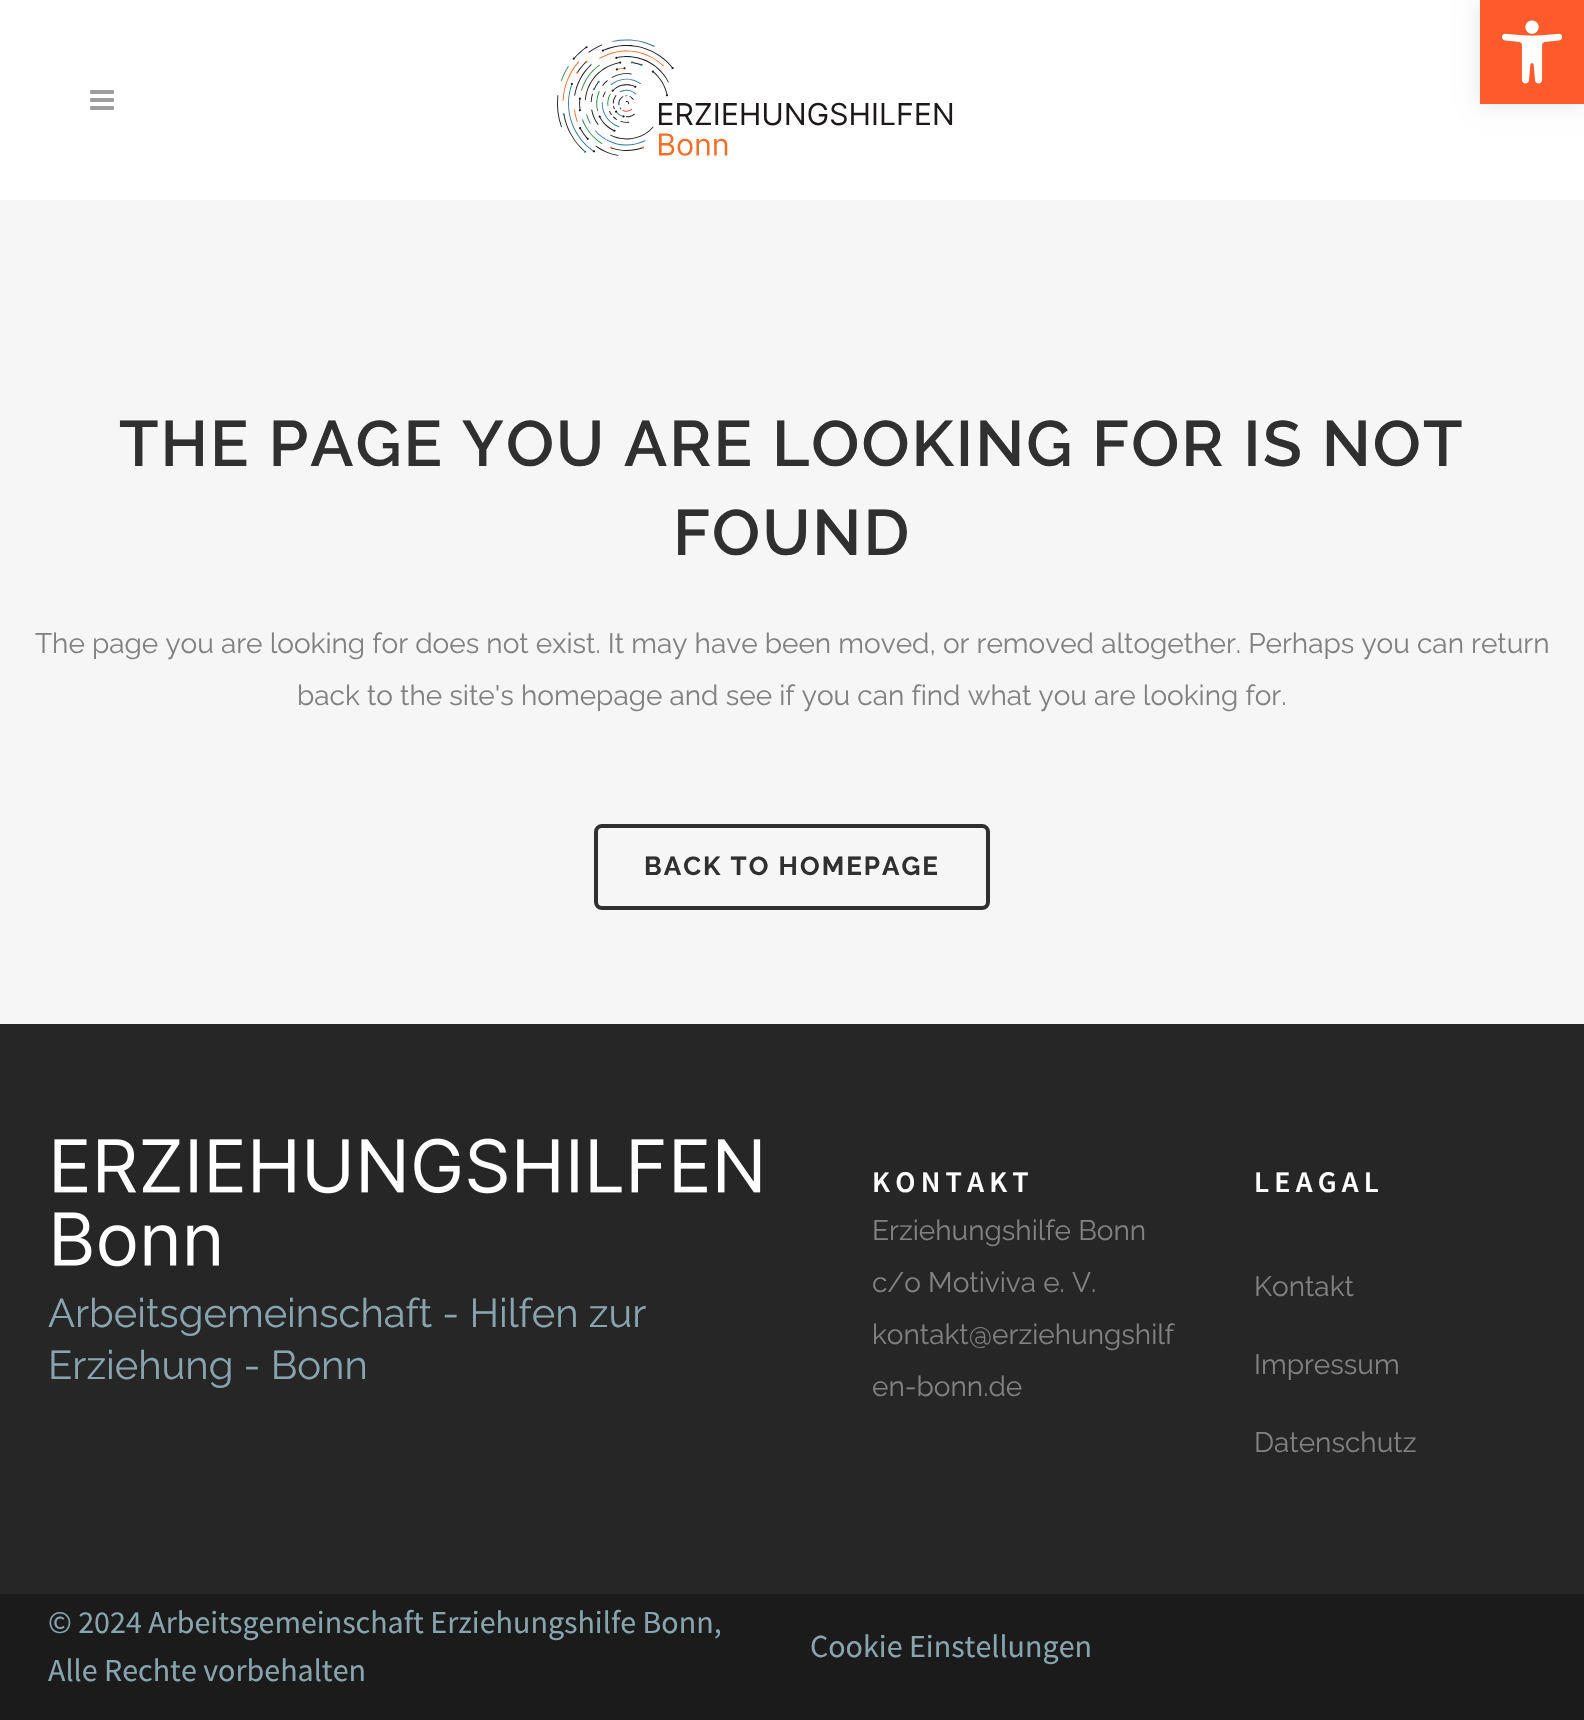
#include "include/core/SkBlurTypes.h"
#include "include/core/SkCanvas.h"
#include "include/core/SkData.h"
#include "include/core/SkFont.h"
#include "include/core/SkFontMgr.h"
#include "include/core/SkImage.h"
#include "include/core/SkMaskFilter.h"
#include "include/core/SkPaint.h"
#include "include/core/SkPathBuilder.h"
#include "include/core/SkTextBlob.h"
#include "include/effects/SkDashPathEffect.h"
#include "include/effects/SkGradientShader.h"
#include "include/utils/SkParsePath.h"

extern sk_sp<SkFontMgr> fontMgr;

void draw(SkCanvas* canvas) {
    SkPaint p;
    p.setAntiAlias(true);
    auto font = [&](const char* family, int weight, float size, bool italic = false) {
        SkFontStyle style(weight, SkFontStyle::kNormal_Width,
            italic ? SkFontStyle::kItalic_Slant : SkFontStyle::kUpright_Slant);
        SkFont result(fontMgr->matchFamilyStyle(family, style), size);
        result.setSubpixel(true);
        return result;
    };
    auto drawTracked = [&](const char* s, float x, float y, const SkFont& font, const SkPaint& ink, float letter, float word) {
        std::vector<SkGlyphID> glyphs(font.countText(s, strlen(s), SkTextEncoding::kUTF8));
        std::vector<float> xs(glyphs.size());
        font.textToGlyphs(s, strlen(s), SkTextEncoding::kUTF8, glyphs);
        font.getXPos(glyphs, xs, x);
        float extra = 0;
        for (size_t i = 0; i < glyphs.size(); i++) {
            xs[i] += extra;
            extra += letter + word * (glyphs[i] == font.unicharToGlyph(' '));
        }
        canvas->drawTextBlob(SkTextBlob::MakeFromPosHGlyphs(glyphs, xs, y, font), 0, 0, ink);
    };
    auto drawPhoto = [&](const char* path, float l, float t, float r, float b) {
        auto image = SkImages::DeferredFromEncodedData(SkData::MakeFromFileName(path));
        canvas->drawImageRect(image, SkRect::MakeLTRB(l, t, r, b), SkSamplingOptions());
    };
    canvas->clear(0xFFF6F6F6);
    p.setColor(0xFFFFFFFF);
    canvas->drawRect(SkRect::MakeLTRB(0, 0, 1584, 200), p);
    p.setColor(0x1A000000);
    p.setMaskFilter(SkMaskFilter::MakeBlur(kNormal_SkBlurStyle, 10));
    canvas->drawRect(SkRect::MakeLTRB(1480, 0, 1584, 104), p);
    p.setMaskFilter(nullptr);
    p.setColor(0xFFFE5B2C);
    canvas->drawRect(SkRect::MakeLTRB(1480, 0, 1584, 104), p);
    drawPhoto("media/1.png", 1502, 20, 1563, 84);
    drawPhoto("media/2.png", 90, 90, 114, 110);
    drawPhoto("media/3.png", 557, 39, 953, 156);
    auto font1 = font("Raleway", 600, 64);
    p.setColor(0xFF303030);
    drawTracked("THE PAGE YOU ARE LOOKING FOR IS NOT", 119, 466, font1, p, 2, 0);
    drawTracked("FOUND", 673, 555, font1, p, 2, 0);
    auto font2 = font("Raleway", 400, 28);
    p.setColor(0xFF818181);
    canvas->drawString("The page you are looking for does not exist. It may have been moved, or removed altogether. Perhaps you can return", 35, 653, font2, p);
    canvas->drawString("back to the site's homepage and see if you can find what you are looking for.", 297, 705, font2, p);
    p.setStyle(SkPaint::kStroke_Style);
    p.setStrokeWidth(4);
    p.setColor(0xFF303030);
    canvas->drawRoundRect(SkRect::MakeLTRB(596, 826, 988, 908), 6, 6, p);
    auto font3 = font("Raleway", 700, 26);
    p.setStyle(SkPaint::kFill_Style);
    drawTracked("BACK TO HOMEPAGE", 644, 875, font3, p, 2, 0);
    p.setColor(0xFF262626);
    canvas->drawRect(SkRect::MakeLTRB(0, 1024, 1584, 1594), p);
    drawPhoto("media/4.png", 54, 1138, 761, 1267);
    auto font4 = font("Raleway", 400, 40);
    p.setColor(0xFF88A5AD);
    canvas->drawString("Arbeitsgemeinschaft - Hilfen zur", 48, 1327, font4, p);
    canvas->drawString("Erziehung - Bonn", 48, 1379, font4, p);
    auto font5 = font("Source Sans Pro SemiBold", 600, 30);
    p.setColor(0xFFFFFFFF);
    drawTracked("KONTAKT", 872, 1192, font5, p, 5.25f, 0);
    p.setColor(0xFF818181);
    {
        const struct { const char* s; float x, y; } items[] = {
            {"Erziehungshilfe Bonn", 872, 1240},
            {"c/o Motiviva e. V.", 872, 1292},
            {"kontakt@erziehungshilf", 872, 1344},
            {"en-bonn.de", 872, 1396},
        };
        for (auto [s, x, y] : items) {
            canvas->drawString(s, x, y, font2, p);
        }
    }
    p.setColor(0xFFFFFFFF);
    drawTracked("LEAGAL", 1254, 1192, font5, p, 5.25f, 0);
    p.setColor(0xFF818181);
    {
        const struct { const char* s; float x, y; } items[] = {
            {"Kontakt", 1254, 1296},
            {"Impressum", 1254, 1374},
            {"Datenschutz", 1254, 1452},
        };
        for (auto [s, x, y] : items) {
            canvas->drawString(s, x, y, font2, p);
        }
    }
    p.setColor(0xFF1B1B1B);
    canvas->drawRect(SkRect::MakeLTRB(0, 1594, 1584, 1720), p);
    auto font6 = font("Source Sans Pro", 400, 32);
    p.setColor(0xFF88A5AD);
    {
        const struct { const char* s; float x, y; } items[] = {
            {"© 2024 Arbeitsgemeinschaft Erziehungshilfe Bonn,", 48, 1633},
            {"Alle Rechte vorbehalten", 48, 1681},
            {"Cookie Einstellungen", 810, 1657},
        };
        for (auto [s, x, y] : items) {
            canvas->drawString(s, x, y, font6, p);
        }
    }
}
